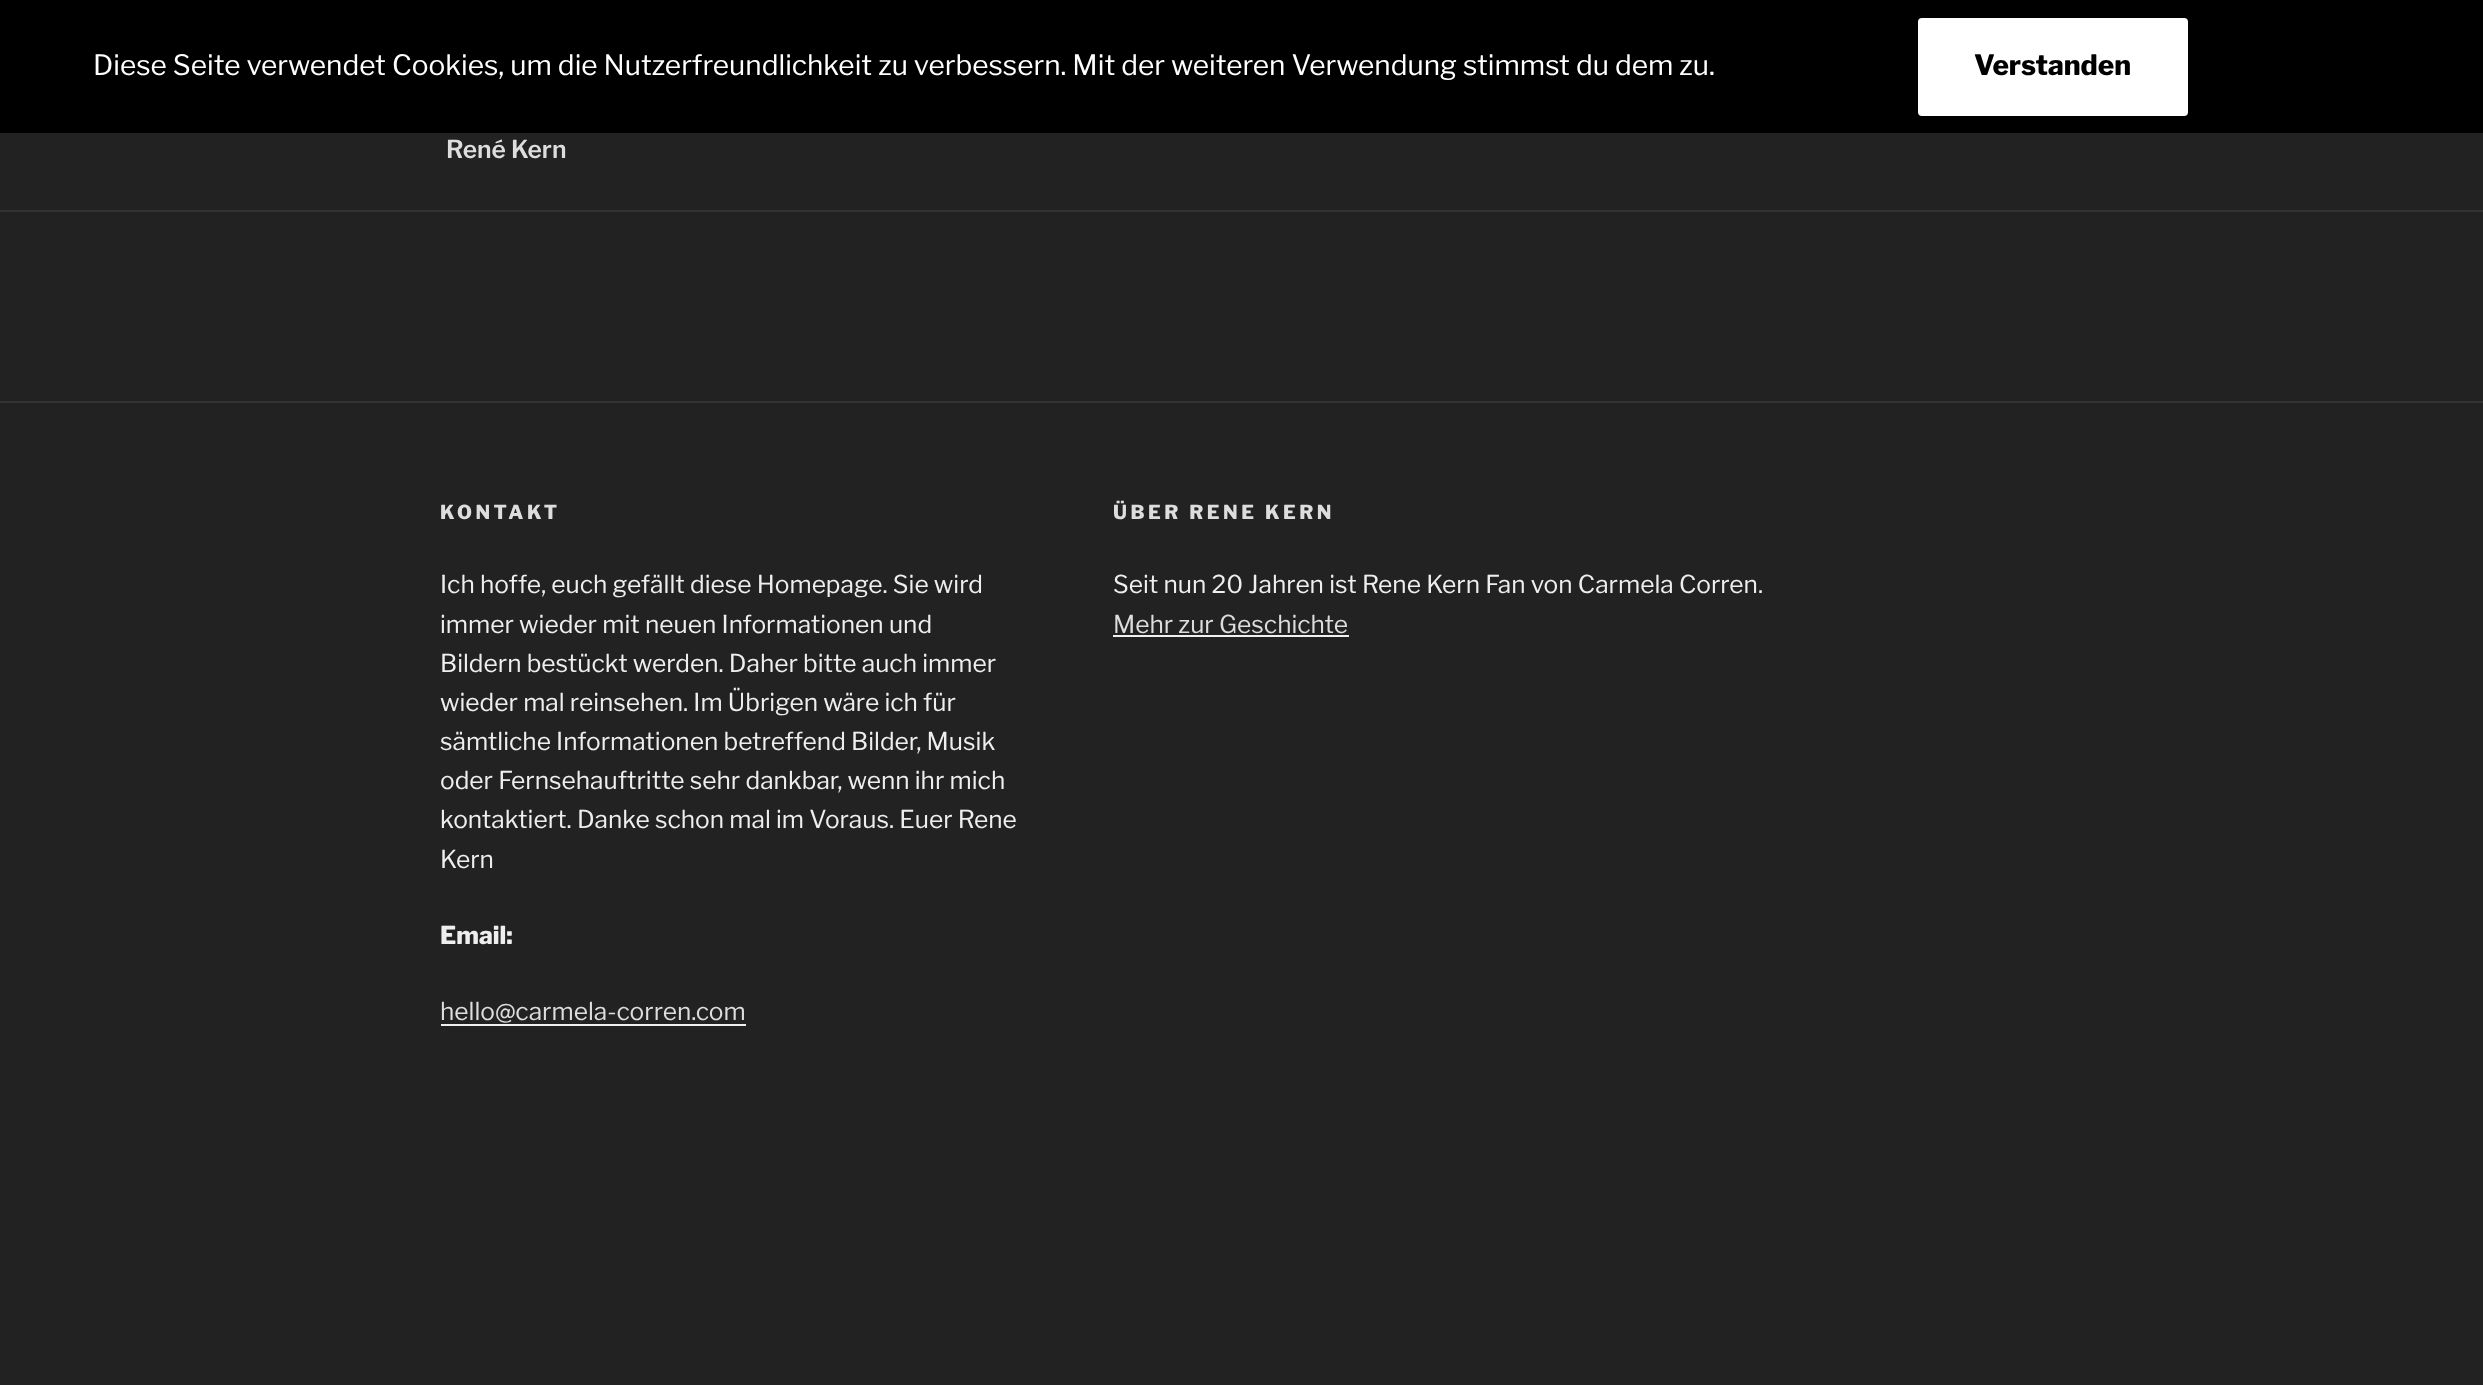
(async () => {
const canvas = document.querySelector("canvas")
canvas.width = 2483
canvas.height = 1385
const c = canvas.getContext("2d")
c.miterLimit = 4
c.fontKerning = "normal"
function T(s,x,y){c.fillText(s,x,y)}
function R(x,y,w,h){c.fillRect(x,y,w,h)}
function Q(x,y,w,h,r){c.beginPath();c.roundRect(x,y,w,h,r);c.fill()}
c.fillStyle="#222"
R(0,0,2483,1385)
c.fillStyle="#000"
R(0,0,2483,133)
c.font="100 28px 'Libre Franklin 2'"
c.fillStyle="#fff"
T("Diese Seite verwendet Cookies, um die Nutzerfreundlichkeit zu verbessern. Mit der weiteren Verwendung stimmst du dem zu.",93,75)
Q(1918,18,270,98,4)
c.font="100 28px Libre Franklin"
c.fillStyle="#000"
T("Verstanden",1974,75)
c.fillStyle="#333"
R(0,210,2483,2)
c.font="100 24.5px 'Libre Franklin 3'"
c.fillStyle="#ddd"
T("René Kern",446,158)
c.fillStyle="#333"
R(0,401,2483,2)
c.letterSpacing="3.5px"
c.font="100 19.25px Libre Franklin"
c.fillStyle="#ddd"
T("KONTAKT",440,519)
c.letterSpacing="0px"
c.font="100 24.5px 'Libre Franklin 2'"
c.fillStyle="#eee"
T("Ich hoffe, euch gefällt diese Homepage. Sie wird",440,593)
T("immer wieder mit neuen Informationen und",440,633)
T("Bildern bestückt werden. Daher bitte auch immer",440,672)
T("wieder mal reinsehen. Im Übrigen wäre ich für",440,711)
T("sämtliche Informationen betreffend Bilder, Musik",440,750)
T("oder Fernsehauftritte sehr dankbar, wenn ihr mich",440,789)
T("kontaktiert. Danke schon mal im Voraus. Euer Rene",440,828)
T("Kern",440,868)
c.font="100 24.5px Libre Franklin"
T("Email:",440,944)
c.font="100 24.5px 'Libre Franklin 2'"
c.fillStyle="#ddd"
T("hello@carmela-corren.com",440,1020)
c.fillStyle="#f0f0f0"
R(441,1024,305,2)
c.letterSpacing="3.5px"
c.font="100 19.25px Libre Franklin"
c.fillStyle="#ddd"
T("ÜBER RENE KERN",1113,519)
c.letterSpacing="0px"
c.font="100 24.5px 'Libre Franklin 2'"
c.fillStyle="#eee"
T("Seit nun 20 Jahren ist Rene Kern Fan von Carmela Corren.",1113,593)
c.fillStyle="#ddd"
T("Mehr zur Geschichte",1113,633)
c.fillStyle="#f0f0f0"
R(1113,635,236,2)
})()
